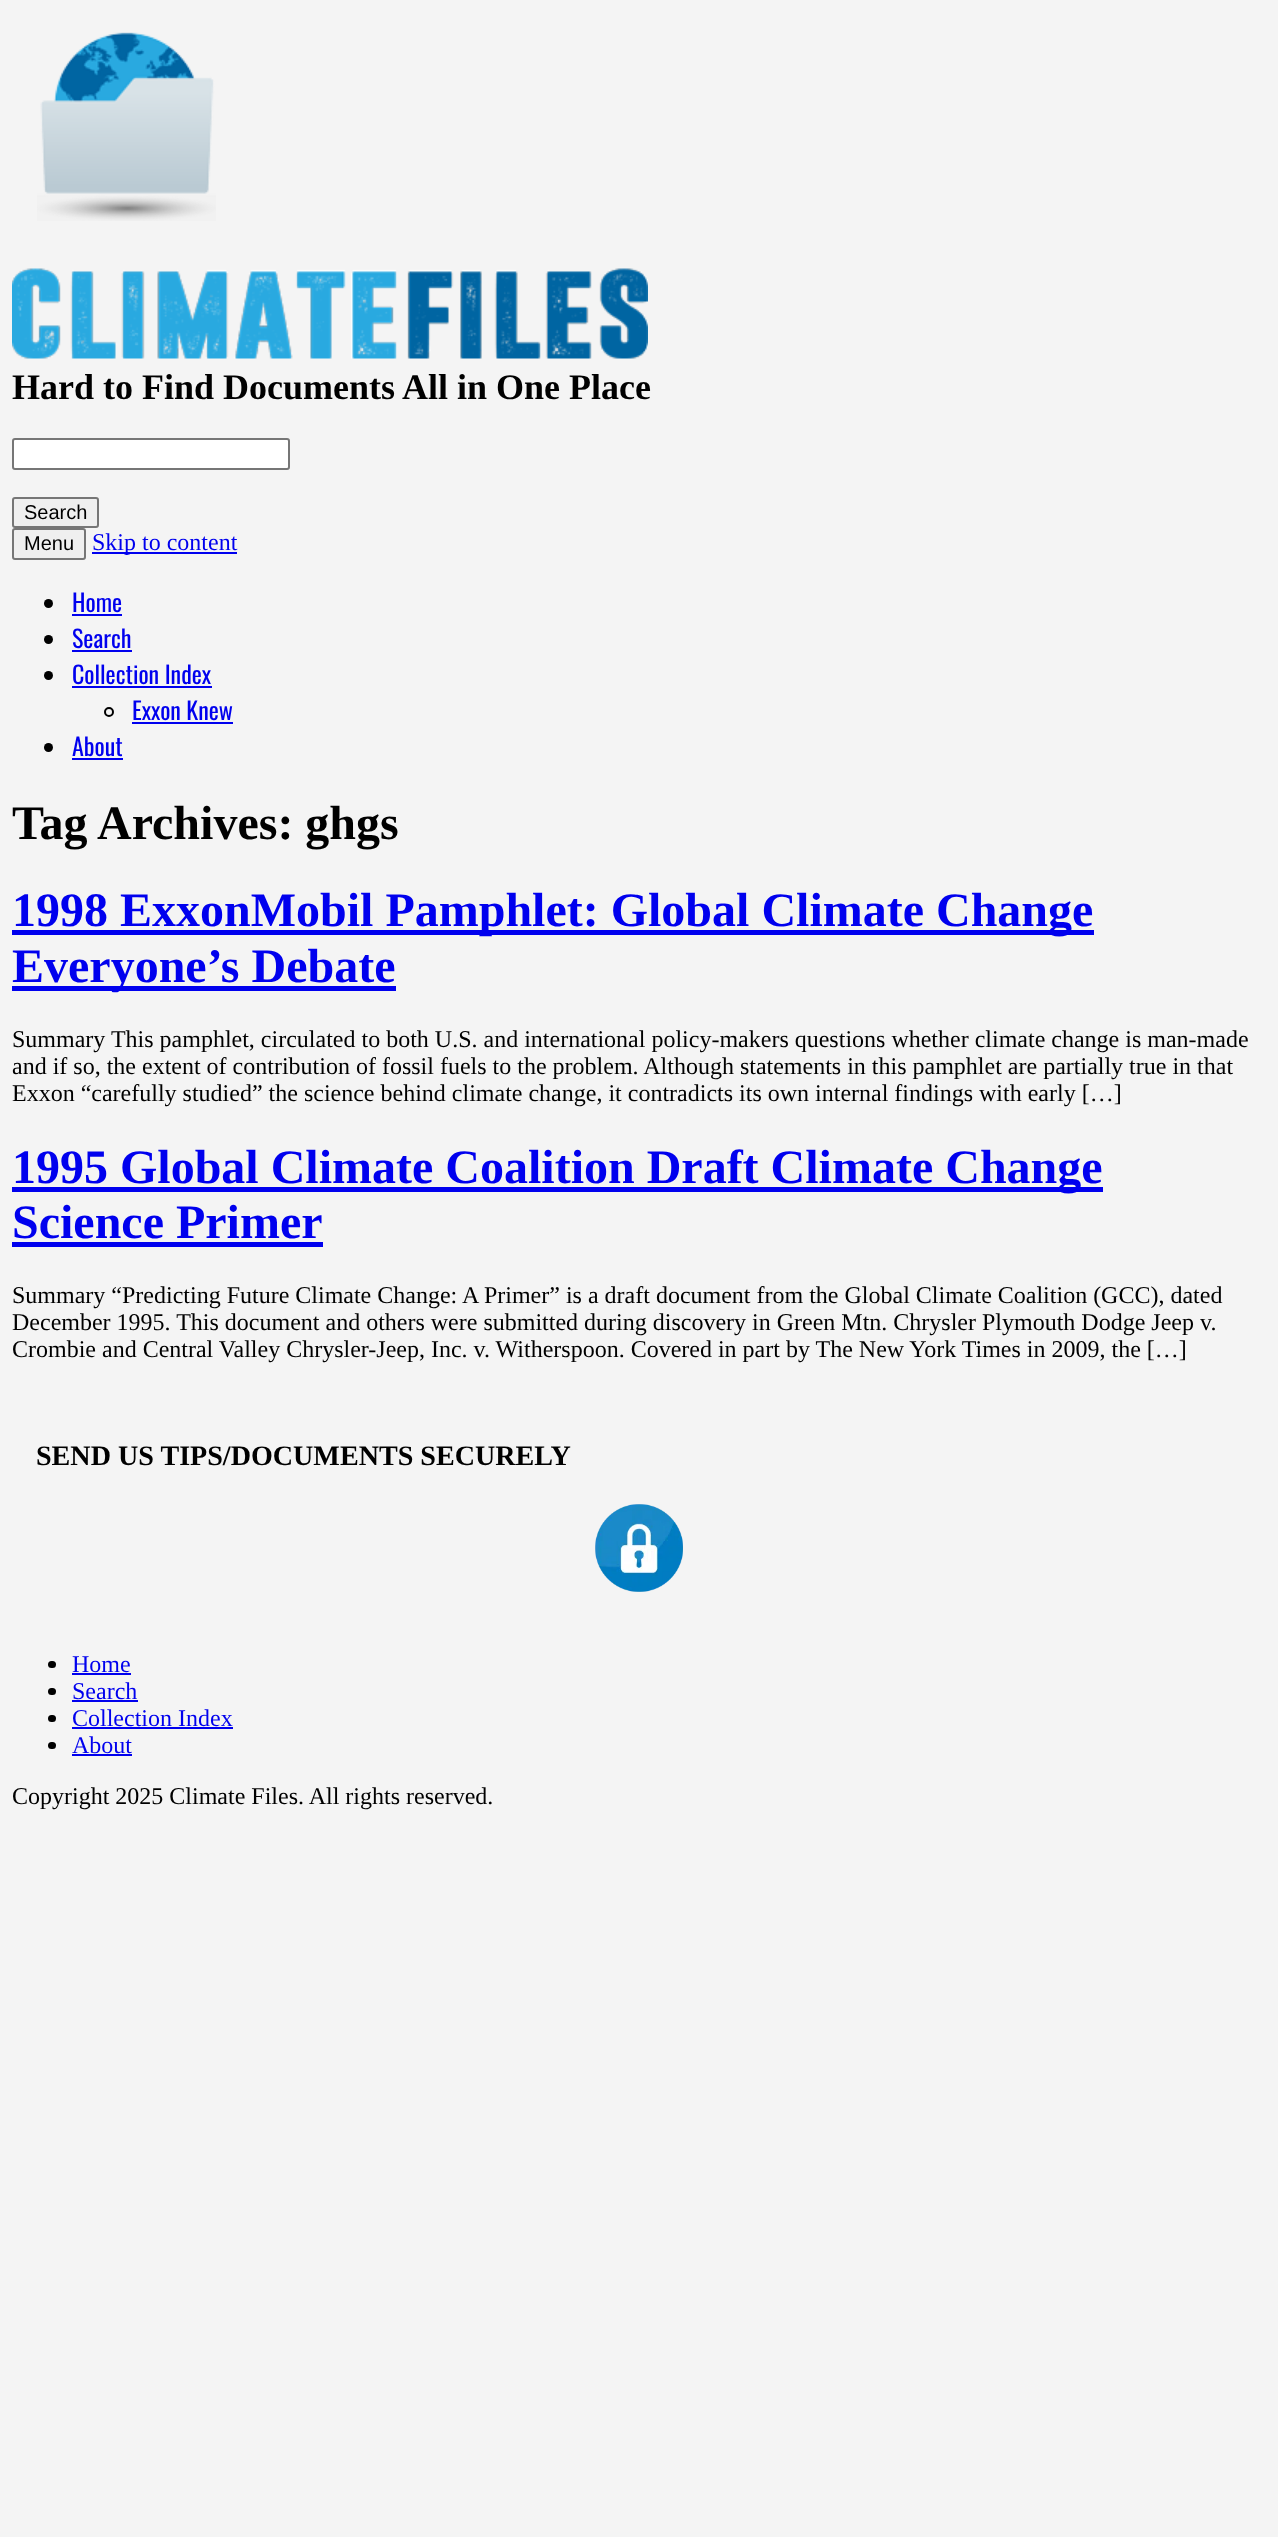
(async () => {
const canvas = document.querySelector("canvas")
canvas.width = 1278
canvas.height = 2537
const c = canvas.getContext("2d")
c.miterLimit = 4
c.fontKerning = "normal"
function T(s,x,y){c.fillText(s,x,y)}
function R(x,y,w,h){c.fillRect(x,y,w,h)}
function Q(x,y,w,h,r){c.beginPath();c.roundRect(x,y,w,h,r);c.fill()}
async function I(src,x,y,w,h){const img=new Image();img.src=src;await img.decode();c.drawImage(img,x,y,w,h)}
c.fillStyle="#f4f4f4"
R(0,0,1278,2537)
await I("1.png",37,32,179,189)
await I("2.png",12,268,636,91)
c.font="bold 36px Liberation Serif"
c.fillStyle="#000"
T("Hard to Find Documents All in One Place",12,399)
c.fillStyle="#fff"
c.beginPath()
c.roundRect(13,439,276,30,2)
c.fill()
c.strokeStyle="#767676"
c.lineWidth=2
c.stroke()
c.fillStyle="#efefef"
c.beginPath()
c.roundRect(13,498,85,29,2)
c.fill()
c.stroke()
c.font="20px Liberation Sans"
c.fillStyle="#000"
T("Search",24,519)
c.fillStyle="#efefef"
c.beginPath()
c.roundRect(13,529,72,30,2)
c.fill()
c.stroke()
c.fillStyle="#000"
T("Menu",24,550)
c.fillStyle="#00e"
R(92,552,145,2)
c.font="24px Liberation Serif"
T("Skip to content",92,550)
c.fillStyle="#000"
c.beginPath()
c.arc(48.5,603.5,4.5,0,7)
c.fill()
c.font="24px Oswald"
c.fillStyle="#00e"
T("Home",72,612)
R(72,614,50,2)
c.fillStyle="#000"
c.beginPath()
c.arc(48.5,639.5,4.5,0,7)
c.fill()
c.fillStyle="#00e"
T("Search",72,648)
R(72,650,60,2)
c.fillStyle="#000"
c.beginPath()
c.arc(48.5,675.5,4.5,0,7)
c.fill()
c.fillStyle="#00e"
T("Collection Index",72,684)
R(72,686,140,2)
c.beginPath()
c.arc(109,712,4,0,7)
c.strokeStyle="#000"
c.stroke()
T("Exxon Knew",132,720)
R(132,722,101,2)
c.fillStyle="#000"
c.beginPath()
c.arc(48.5,747.5,4.5,0,7)
c.fill()
c.fillStyle="#00e"
T("About",72,756)
R(72,758,51,2)
c.font="bold 48px Liberation Serif"
c.fillStyle="#000"
T("Tag Archives: ghgs",12,839)
c.fillStyle="#00e"
R(12,930,1082,5)
T("1998 ExxonMobil Pamphlet: Global Climate Change",12,926)
R(12,986,384,5)
T("Everyone’s Debate",12,982)
c.font="24px Liberation Serif"
c.fillStyle="#000"
T("Summary This pamphlet, circulated to both U.S. and international policy-makers questions whether climate change is man-made",12,1047)
T("and if so, the extent of contribution of fossil fuels to the problem. Although statements in this pamphlet are partially true in that",12,1074)
T("Exxon “carefully studied” the science behind climate change, it contradicts its own internal findings with early […]",12,1101)
c.fillStyle="#00e"
R(12,1187,1091,5)
c.font="bold 48px Liberation Serif"
T("1995 Global Climate Coalition Draft Climate Change",12,1183)
T("Science Primer",12,1238)
R(12,1242,311,5)
c.font="24px Liberation Serif"
c.fillStyle="#000"
T("Summary “Predicting Future Climate Change: A Primer” is a draft document from the Global Climate Coalition (GCC), dated",12,1303)
T("December 1995. This document and others were submitted during discovery in Green Mtn. Chrysler Plymouth Dodge Jeep v.",12,1330)
T("Crombie and Central Valley Chrysler-Jeep, Inc. v. Witherspoon. Covered in part by The New York Times in 2009, the […]",12,1357)
c.font="bold 28.1px Liberation Serif"
T("SEND US TIPS/DOCUMENTS SECURELY",36,1465)
await I("3.png",595,1504,88,88)
Q(48,1661,8,7,3.5)
c.font="24px Liberation Serif"
c.fillStyle="#00e"
T("Home",72,1672)
R(72,1673,59,2)
c.fillStyle="#000"
Q(48,1688,8,7,3.5)
c.fillStyle="#00e"
T("Search",72,1699)
R(72,1700,66,2)
c.fillStyle="#000"
Q(48,1715,8,7,3.5)
c.fillStyle="#00e"
T("Collection Index",72,1726)
R(72,1727,161,2)
c.fillStyle="#000"
Q(48,1742,8,7,3.5)
c.fillStyle="#00e"
T("About",72,1753)
R(72,1754,60,2)
c.fillStyle="#000"
T("Copyright 2025 Climate Files. All rights reserved.",12,1804)
})()
